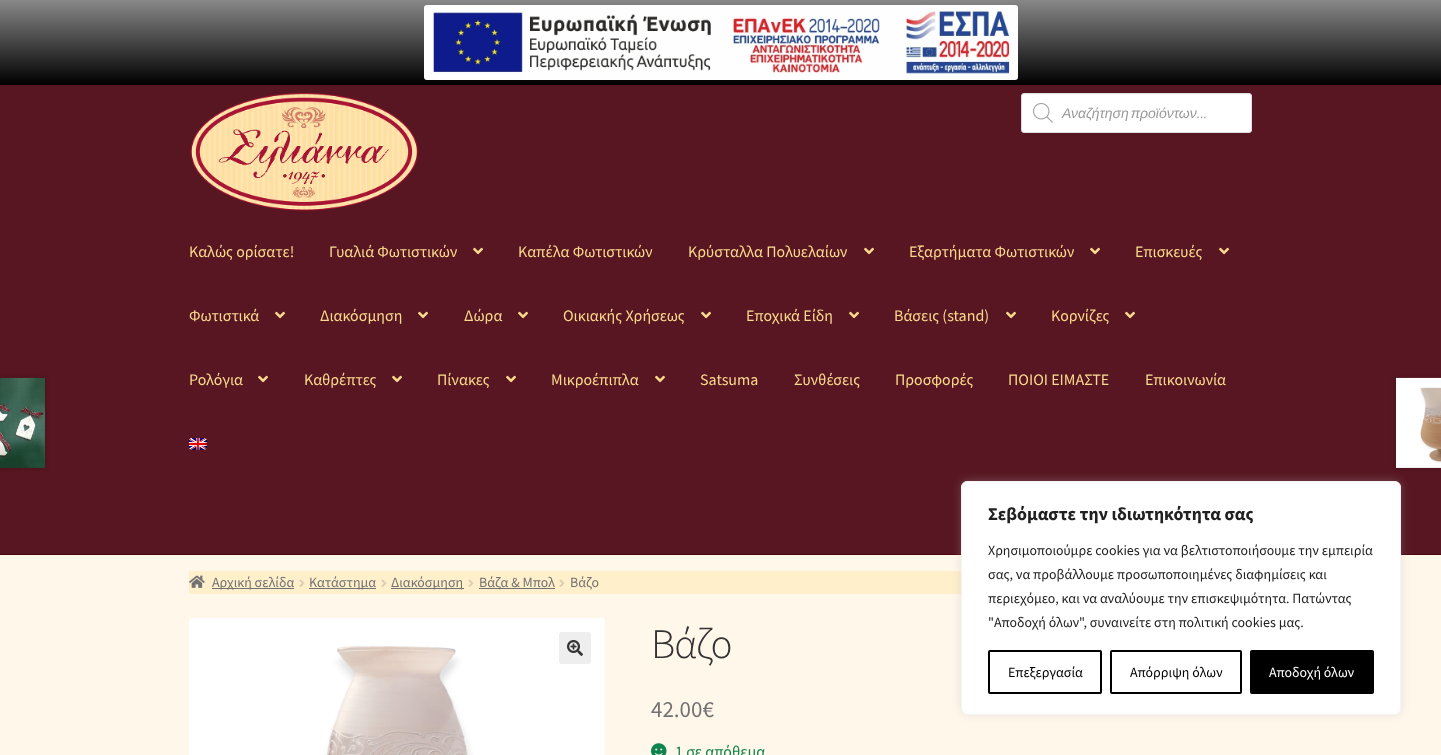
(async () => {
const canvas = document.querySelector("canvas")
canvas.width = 1441
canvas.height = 755
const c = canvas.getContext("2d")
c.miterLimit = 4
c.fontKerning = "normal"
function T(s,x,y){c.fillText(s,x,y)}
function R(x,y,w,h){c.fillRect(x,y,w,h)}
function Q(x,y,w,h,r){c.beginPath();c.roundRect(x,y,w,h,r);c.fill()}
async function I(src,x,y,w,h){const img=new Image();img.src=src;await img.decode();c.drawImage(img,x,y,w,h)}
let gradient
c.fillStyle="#fff7ea"
R(0,0,1441,755)
gradient = c.createLinearGradient(721,0,721,85)
gradient.addColorStop(0,"#888")
gradient.addColorStop(1,"#000")
c.fillStyle = gradient
R(0,0,1441,85)
await I("1.png",424,5,594,75)
c.fillStyle="#581622"
R(0,85,1441,469)
c.fillStyle="#490713"
R(0,554,1441,1)
await I("2.png",190,93,229,119)
c.fillStyle="#fff"
c.beginPath()
c.roundRect(1021.5,93.5,230,39,2.5)
c.fill()
c.strokeStyle="#ddd"
c.stroke()
await I("3.png",1033,103,20,20)
c.wordSpacing="-2px"
c.font="italic 14px Liberation Sans"
c.fillStyle="#999"
T("Αναζήτηση προϊόντων",1062,118)
c.wordSpacing="0px"
c.font="italic 14px Source Sans Pro"
T("...",1197,118)
c.font="16px Source Sans Pro"
c.fillStyle="#fbda8d"
T("Καλώς ορίσατε!",189,257)
T("Γυαλιά Φωτιστικών",329,257)
await I("4.png",473,247,10,8)
T("Καπέλα Φωτιστικών",518,257)
T("Κρύσταλλα Πολυελαίων",688,257)
await I("4.png",864,247,10,8)
T("Εξαρτήματα Φωτιστικών",909,257)
await I("4.png",1090,247,10,8)
T("Επισκευές",1135,257)
await I("4.png",1219,247,10,8)
T("Φωτιστικά",189,321)
await I("4.png",275,311,10,8)
T("Διακόσμηση",320,321)
await I("4.png",418,311,10,8)
T("Δώρα",464,321)
await I("4.png",518,311,10,8)
T("Οικιακής Χρήσεως",563,321)
await I("4.png",701,311,10,8)
T("Εποχικά Είδη",746,321)
await I("4.png",849,311,10,8)
T("Βάσεις (stand)",894,321)
await I("4.png",1006,311,10,8)
T("Κορνίζες",1051,321)
await I("4.png",1125,311,10,8)
T("Ρολόγια",189,385)
await I("4.png",258,375,10,8)
T("Καθρέπτες",304,385)
await I("4.png",392,375,10,8)
T("Πίνακες",437,385)
await I("4.png",506,375,10,8)
T("Μικροέπιπλα",551,385)
await I("4.png",655,375,10,8)
T("Satsuma",700,385)
T("Συνθέσεις",794,385)
T("Προσφορές",895,385)
T("ΠΟΙΟΙ ΕΙΜΑΣΤΕ",1008,385)
T("Επικοινωνία",1145,385)
await I("5.png",189,438,18,12)
c.fillStyle="#ffefcb"
R(189,571,772,23)
await I("6.png",189,575,16,13)
c.fillStyle="#727272"
R(212,588,82,1)
c.font="14px Source Sans Pro"
T("Αρχική σελίδα",212,587)
await I("7.png",299,579,6,8)
R(309,588,67,1)
T("Κατάστημα",309,587)
await I("7.png",381,579,6,8)
R(391,588,73,1)
T("Διακόσμηση",391,587)
await I("7.png",468,579,6,8)
R(479,588,76,1)
T("Βάζα & Μπολ",479,587)
await I("7.png",559,579,6,8)
T("Βάζο",570,587)
c.fillStyle="#00000033"
c.filter="blur(2.5px)"
c.beginPath()
c.rect(-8,378,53,90)
c.fill()
c.filter="none"
await I("8.png",0,377,45,91)
c.filter="blur(2.5px)"
c.beginPath()
c.rect(1396,378,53,90)
c.fill()
c.filter="none"
await I("9.png",1396,377,45,91)
await I("10.png",189,618,416,137)
c.fillStyle="#eee"
Q(559,632,32,32,3)
await I("11.png",567,640,16,16)
c.letterSpacing="-1px"
c.font="300 42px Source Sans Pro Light"
c.fillStyle="#333"
T("Βάζο",651,658)
c.letterSpacing="0px"
c.font="23px Source Sans Pro"
c.fillStyle="#727272"
T("42.00€",651,717)
await I("12.png",651,743,16,12)
c.font="16px Source Sans Pro"
c.fillStyle="#0f834d"
T("1 σε απόθεμα",675,757)
c.fillStyle="#acabab4d"
c.filter="blur(5px)"
c.beginPath()
c.roundRect(961,480,440,234,6)
c.fill()
c.filter="none"
c.fillStyle="#fff"
c.beginPath()
c.roundRect(961.5,481.5,439,233,5.5)
c.fill()
c.strokeStyle="#f4f4f4"
c.stroke()
c.font="bold 18px Source Sans Pro"
c.fillStyle="#212121"
T("Σεβόμαστε την ιδιωτηκότητα σας",988,520)
c.font="14px Source Sans Pro"
T("Χρησιμοποιούμρε cookies για να βελτιστοποιήσουμε την εμπειρία",988,555)
T("σας, να προβάλλουμε προσωποποιημένες διαφημίσεις και",988,579)
T("περιεχόμεο, και να αναλύουμε την επισκεψιμότητα. Πατώντας",988,603)
T("\"Αποδοχή όλων\", συναινείτε στη πολιτική cookies μας.",988,627)
c.beginPath()
c.roundRect(989,651,112,42,1)
c.strokeStyle="#000"
c.lineWidth=2
c.stroke()
c.fillStyle="#000"
T("Επεξεργασία",1008,677)
c.beginPath()
c.roundRect(1111,651,130,42,1)
c.stroke()
T("Απόρριψη όλων",1130,677)
c.beginPath()
c.roundRect(1251,651,122,42,1)
c.fill()
c.stroke()
c.fillStyle="#fff"
T("Αποδοχή όλων",1269,677)
})()
